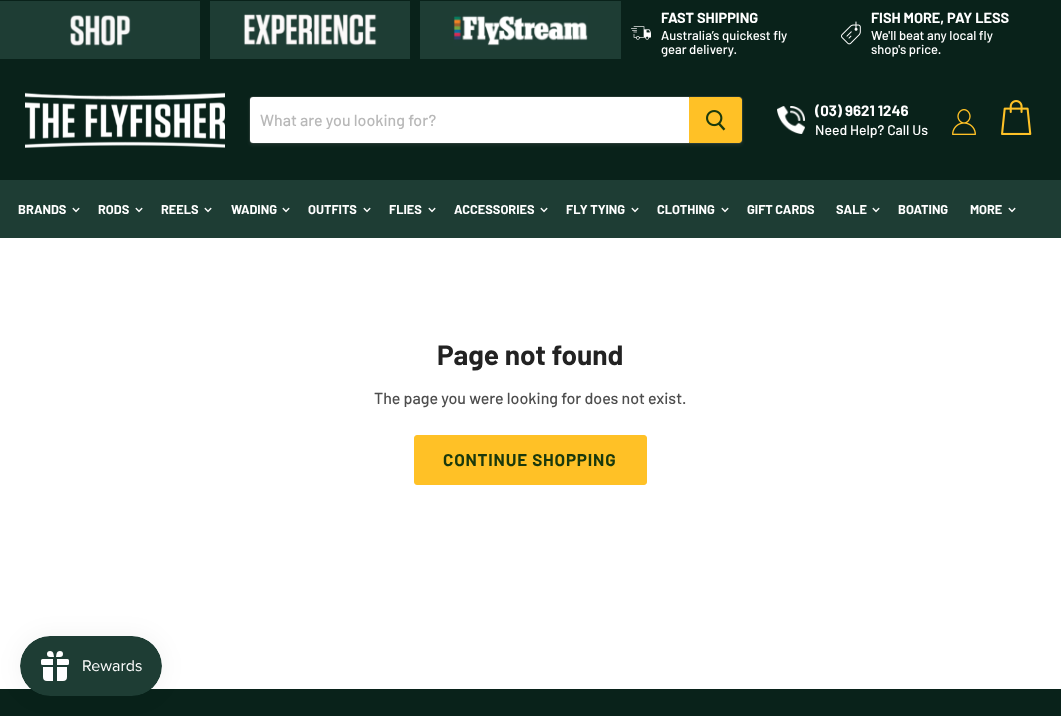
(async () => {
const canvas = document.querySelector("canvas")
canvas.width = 1061
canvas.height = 716
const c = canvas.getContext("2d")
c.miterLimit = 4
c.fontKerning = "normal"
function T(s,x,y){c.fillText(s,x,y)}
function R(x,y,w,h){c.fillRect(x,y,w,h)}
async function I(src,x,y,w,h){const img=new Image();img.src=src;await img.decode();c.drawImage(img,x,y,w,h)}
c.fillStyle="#fff"
R(0,0,1061,716)
c.fillStyle="#09221a"
R(0,0,1061,180)
c.fillStyle="#1e3d34"
R(0,1,200,58)
await I("1.png",70,15,61,31)
R(210,1,200,58)
await I("2.png",243,14,134,32)
R(420,1,201,58)
await I("3.png",453,15,135,31)
await I("4.png",631,26,20,14)
c.font="bold 14.5px Barlow"
c.fillStyle="#fff"
T("FAST SHIPPING",661,23)
c.font="500 13px Barlow"
T("Australia’s quickest fly",661,40)
T("gear delivery.",661,54)
await I("5.png",841,21,20,24)
c.font="bold 14.5px Barlow"
T("FISH MORE, PAY LESS",871,23)
c.font="500 13px Barlow"
T("We'll beat any local fly",871,40)
T("shop's price.",871,54)
await I("6.png",25,92,200,56)
c.fillStyle="#7f7f7f1c"
c.filter="blur(1.5px)"
c.beginPath()
c.roundRect(249,98,494,48,4)
c.fill()
c.filter="none"
c.beginPath()
c.roundRect(249.5,96.5,493,47,3.5)
c.strokeStyle="#7f7f7f33"
c.stroke()
c.fillStyle="#fff"
c.beginPath()
c.roundRect(250,97,439,46,[3,0,0,3])
c.fill()
c.save()
c.beginPath()
c.rect(260,110,419,19)
c.clip()
c.font="500 16px Barlow"
c.fillStyle="#b8b8b8"
T("What are you looking for?",260,126)
c.restore()
c.fillStyle="#ffc126"
c.beginPath()
c.roundRect(689.5,97.5,52,45,[0,2.5,2.5,0])
c.fill()
c.strokeStyle="#ffc126"
c.stroke()
await I("7.png",706,110,20,21)
await I("8.png",777,106,28,28)
c.font="bold 15px Barlow"
c.fillStyle="#fff"
T("(03) 9621 1246",815,116)
c.font="500 14px Barlow"
T("Need Help? Call Us",815,135)
await I("9.png",952,109,24,26)
await I("10.png",1001,100,31,35)
c.fillStyle="#1e3d34"
R(0,180,1061,58)
c.font="bold 12.75px Barlow"
c.fillStyle="#fff"
T("BRANDS",18,214)
await I("11.png",72,207,8,6)
T("RODS",98,214)
await I("11.png",135,207,8,6)
T("REELS",161,214)
await I("11.png",204,207,8,6)
T("WADING",231,214)
await I("11.png",282,207,8,6)
T("OUTFITS",308,214)
await I("11.png",363,207,8,6)
T("FLIES",389,214)
await I("11.png",428,207,8,6)
T("ACCESSORIES",454,214)
await I("11.png",540,207,8,6)
T("FLY TYING",566,214)
await I("11.png",631,207,8,6)
T("CLOTHING",657,214)
await I("11.png",721,207,8,6)
T("GIFT CARDS",747,214)
T("SALE",836,214)
await I("11.png",872,207,8,6)
T("BOATING",898,214)
T("MORE",970,214)
await I("11.png",1008,207,8,6)
c.font="bold 28px Barlow"
c.fillStyle="#222"
T("Page not found",437,365)
c.font="500 16px Barlow"
c.fillStyle="#4d4d4d"
T("The page you were looking for does not exist.",374,404)
c.fillStyle="#ffc126"
c.beginPath()
c.roundRect(414.5,435.5,232,49,2.5)
c.fill()
c.stroke()
c.letterSpacing="0.8px"
c.font="bold 17px Barlow"
c.fillStyle="#1a390c"
T("CONTINUE SHOPPING",443,466)
c.fillStyle="#09221a"
R(0,689,1061,27)
c.fillStyle="#0000000d"
c.filter="blur(12.5px)"
c.beginPath()
c.roundRect(20,636,142,60,30)
c.fill()
c.filter="none"
await I("12.png",20,636,142,60)
})()
